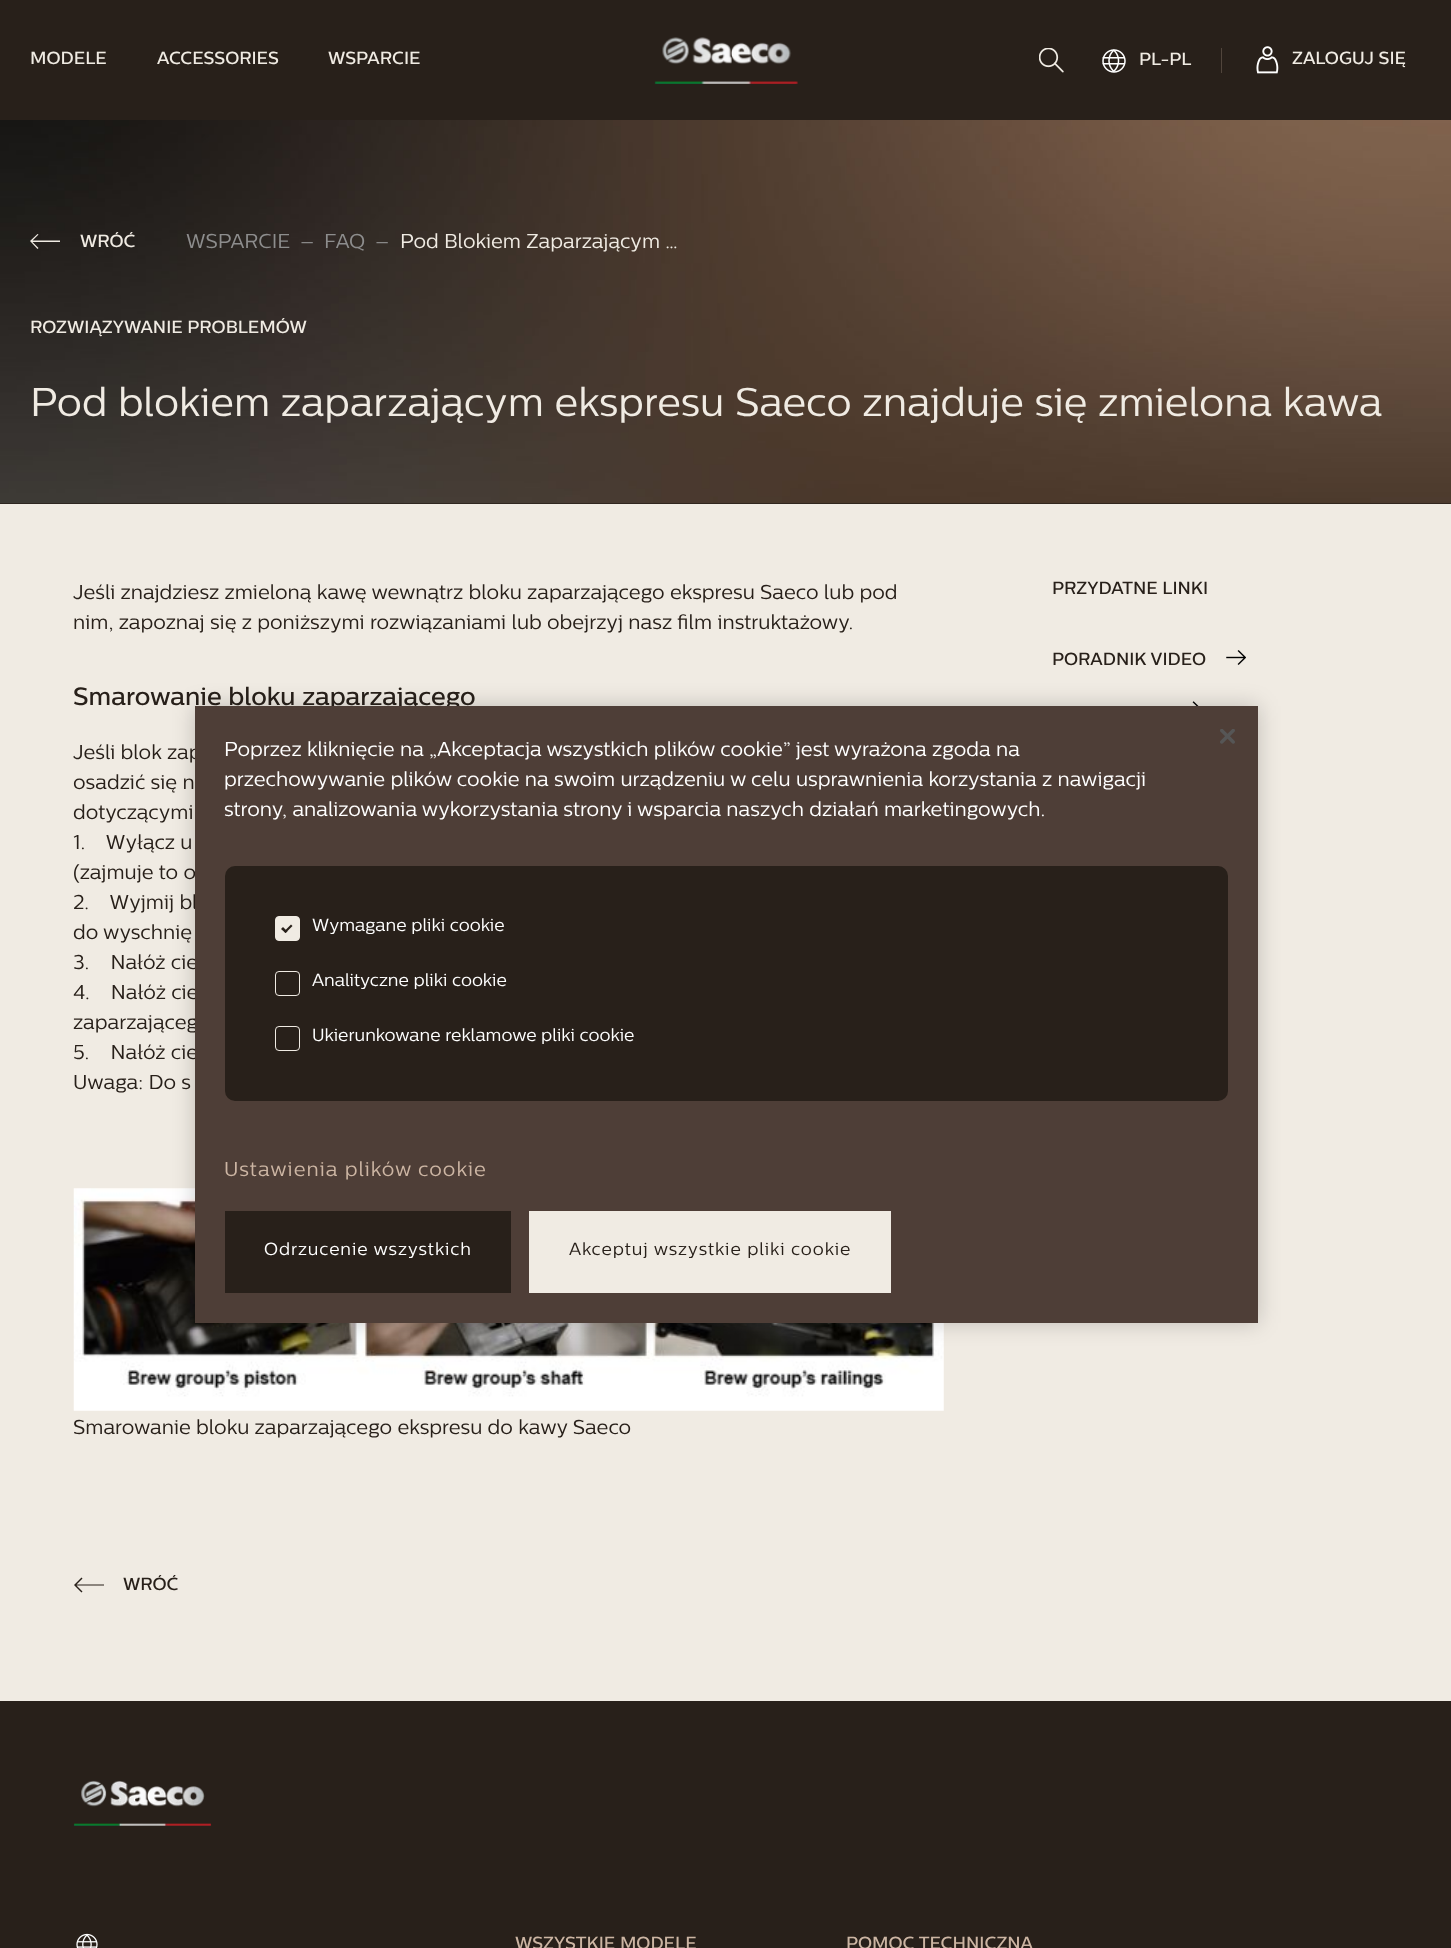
(async () => {
const canvas = document.querySelector("canvas")
canvas.width = 1451
canvas.height = 1948
const c = canvas.getContext("2d")
c.miterLimit = 4
c.fontKerning = "normal"
function T(s,x,y){c.fillText(s,x,y)}
function R(x,y,w,h){c.fillRect(x,y,w,h)}
function Q(x,y,w,h,r){c.beginPath();c.roundRect(x,y,w,h,r);c.fill()}
async function I(src,x,y,w,h){const img=new Image();img.src=src;await img.decode();c.drawImage(img,x,y,w,h)}
let path
c.fillStyle="#28201a"
R(0,0,1451,1948)
c.font="500 17.5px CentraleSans"
c.fillStyle="#f0ebe3"
T("MODELE",30,64)
T("ACCESSORIES",157,64)
T("WSPARCIE",328,64)
await I("1.png",654,37,144,47)
await I("2.png",1039,48,25,25)
await I("3.png",1102,49,24,24)
T("PL-PL",1139,65)
c.fillStyle="#51453c"
R(1221,48,1,25)
await I("4.png",1256,46,23,28)
c.fillStyle="#f0ebe3"
T("ZALOGUJ SIĘ",1292,64)
await I("5.png",0,120,1451,384)
path = new Path2D("M37.5 234l-7.5 7l7.5 8l1-1l-6-6h27.5v-1.5h-27.5l6-6z")
c.fill(path,"evenodd")
T("WRÓĆ",80,247)
c.font="20px CentraleSans"
c.fillStyle="#8d8d8d"
T("WSPARCIE",186,248)
T("–",300,248)
T("FAQ",324,248)
T("–",375,248)
c.fillStyle="#f0ebe3"
T("Pod Blokiem Zaparzającym …",400,248)
c.font="500 17.5px CentraleSans"
T("ROZWIĄZYWANIE PROBLEMÓW",30,333)
c.font="40px CentraleSans"
T("Pod blokiem zaparzającym ekspresu Saeco znajduje się zmielona kawa",30,416)
R(0,504,1451,1197)
c.font="20px CentraleSans"
c.fillStyle="#28201a"
T("Jeśli znajdziesz zmieloną kawę wewnątrz bloku zaparzającego ekspresu Saeco lub pod",73,599)
T("nim, zapoznaj się z poniższymi rozwiązaniami lub obejrzyj nasz film instruktażowy.",73,629)
c.font="500 25px CentraleSans"
T("Smarowanie bloku zaparzającego",73,705)
c.font="20px CentraleSans"
T("Jeśli blok zap",73,759)
T("osadzić się n",73,789)
T("dotyczącymi",73,819)
T("1.    Wyłącz u",73,849)
T("(zajmuje to o",73,879)
T("2.    Wyjmij bl",73,909)
T("do wyschnię",73,939)
T("3.    Nałóż cie",73,969)
T("4.    Nałóż cie",73,999)
T("zaparzająceg",73,1029)
T("5.    Nałóż cie",73,1059)
T("Uwaga: Do s",73,1089)
await I("6.png",73,1188,871,223)
T("Smarowanie bloku zaparzającego ekspresu do kawy Saeco",73,1434)
c.font="500 17.5px CentraleSans"
T("PRZYDATNE LINKI",1052,594)
T("PORADNIK VIDEO",1052,665)
await I("7.png",1226,650,20,15)
await I("8.png",1192,701,7,5)
path = new Path2D("M81.5 1577.5l-7.5 7.5l7.5 7.5l1-1l-6-6h27.5v-1h-27.5l6-6z")
c.fill(path,"evenodd")
T("WRÓĆ",123,1590)
await I("9.png",73,1780,139,46)
await I("10.png",76,1933,22,15)
c.fillStyle="#ccb5a3"
T("WSZYSTKIE MODELE",515,1949)
T("POMOC TECHNICZNA",846,1949)
c.fillStyle="#00000033"
c.filter="blur(11px)"
c.beginPath()
c.rect(195,706,1063,617)
c.fill()
c.filter="none"
c.fillStyle="#4e3e37"
R(195,706,1063,617)
await I("11.png",1220,729,15,15)
c.font="20px CentraleSans"
c.fillStyle="#fff"
T("Poprzez kliknięcie na „Akceptacja wszystkich plików cookie” jest wyrażona zgoda na",224,756)
T("przechowywanie plików cookie na swoim urządzeniu w celu usprawnienia korzystania z nawigacji",224,786)
T("strony, analizowania wykorzystania strony i wsparcia naszych działań marketingowych.",224,816)
c.fillStyle="#28201a"
Q(225,866,1003,235,10)
c.fillStyle="#f0ebe3"
c.beginPath()
c.roundRect(275.5,916.5,24,24,3.5)
c.fill()
c.strokeStyle="#f0ebe3"
c.stroke()
c.fillStyle="#28201a"
path = new Path2D("M284 931.5l7-7l1.5 1.5l-7 7z")
c.fill(path)
path = new Path2D("M281 929l2-2l4.5 4.5l-2 1.5z")
c.fill(path)
c.font="17.5px CentraleSans"
c.fillStyle="#fff"
T("Wymagane pliki cookie",312,931)
c.beginPath()
c.roundRect(275.5,971.5,24,24,3.5)
c.stroke()
T("Analityczne pliki cookie",312,986)
c.beginPath()
c.roundRect(275.5,1026.5,24,24,3.5)
c.stroke()
T("Ukierunkowane reklamowe pliki cookie",312,1041)
c.letterSpacing="1px"
c.font="20px CentraleSans"
c.fillStyle="#ccb5a3"
T("Ustawienia plików cookie",224,1176)
c.fillStyle="#28201a"
R(225,1211,286,82)
c.letterSpacing="0.9px"
c.font="17.5px CentraleSans"
c.fillStyle="#fff"
T("Odrzucenie wszystkich",264,1255)
c.fillStyle="#f0ebe3"
R(529,1211,362,82)
c.fillStyle="#28201a"
T("Akceptuj wszystkie pliki cookie",569,1255)
})()
